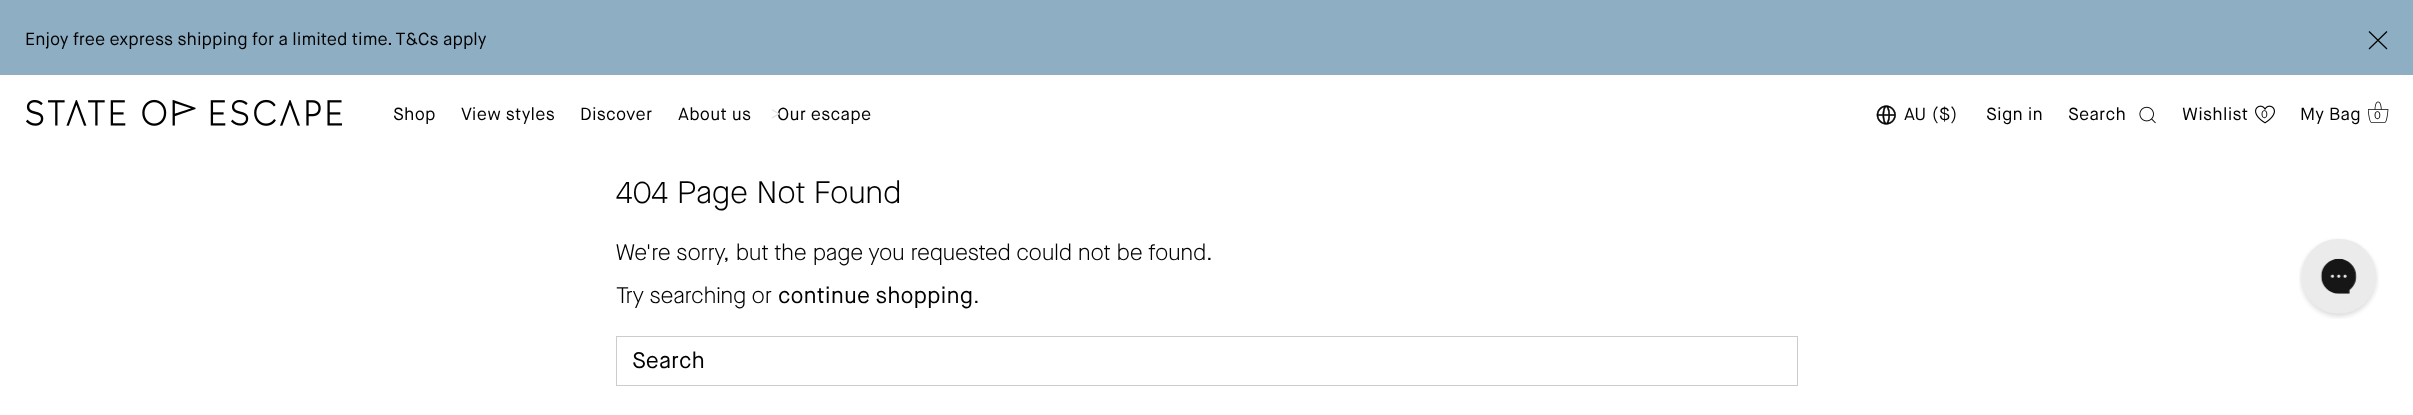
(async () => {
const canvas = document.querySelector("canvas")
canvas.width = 2413
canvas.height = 415
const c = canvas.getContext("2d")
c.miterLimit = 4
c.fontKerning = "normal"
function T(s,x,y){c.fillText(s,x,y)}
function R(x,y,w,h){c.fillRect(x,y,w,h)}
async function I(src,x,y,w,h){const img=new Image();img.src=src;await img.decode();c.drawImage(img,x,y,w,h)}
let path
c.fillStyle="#fff"
R(0,0,2413,415)
c.fillStyle="#8eaec3"
R(0,0,2413,75)
c.font="17.5px Maison Neue"
c.fillStyle="#000"
T("Enjoy free express shipping for a limited time. T&Cs apply",25,45)
path = new Path2D("M2369 31.5l18 17.5m0-17.5l-18 17.5")
c.strokeStyle="#000"
c.lineWidth=1.2
c.stroke(path)
await I("1.png",26,99,316,27)
c.letterSpacing="0.25px"
T("Shop",393,120)
T("View styles",461,120)
T("Discover",580,120)
T("About us",678,120)
T("Our escape",777,120)
c.fillStyle="#e2e2e2"
T(">",771,120)
await I("2.png",1876,105,20,20)
c.letterSpacing="0px"
c.fillStyle="#000"
T("AU",1904,120)
T("($)",1932,120)
c.letterSpacing="0.25px"
T("Sign in",1986,120)
T("Search",2068,120)
await I("3.png",2139,106,17,18)
T("Wishlist",2182,120)
await I("4.png",2255,105,20,19)
c.font="11px Maison Neue"
T("0",2261,118)
c.font="17.5px Maison Neue"
T("My Bag",2300,120)
await I("5.png",2368,101,21,22)
c.font="11px Maison Neue"
T("0",2374,119)
c.letterSpacing="0px"
c.font="300 31.25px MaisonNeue"
T("404 Page Not Found",616,203)
c.font="300 22.5px MaisonNeue"
T("We're sorry, but the page you requested could not be found.",616,260)
T("Try searching or",616,303)
c.font="22.5px Maison Neue"
T("continue shopping",778,303)
c.font="300 22.5px MaisonNeue"
T(".",973,303)
c.strokeStyle="#ccc"
c.lineWidth=1
c.strokeRect(616.5,336.5,1181,49)
c.font="22.5px Maison Neue"
T("Search",632,368)
await I("6.png",2299,238,80,81)
})()
